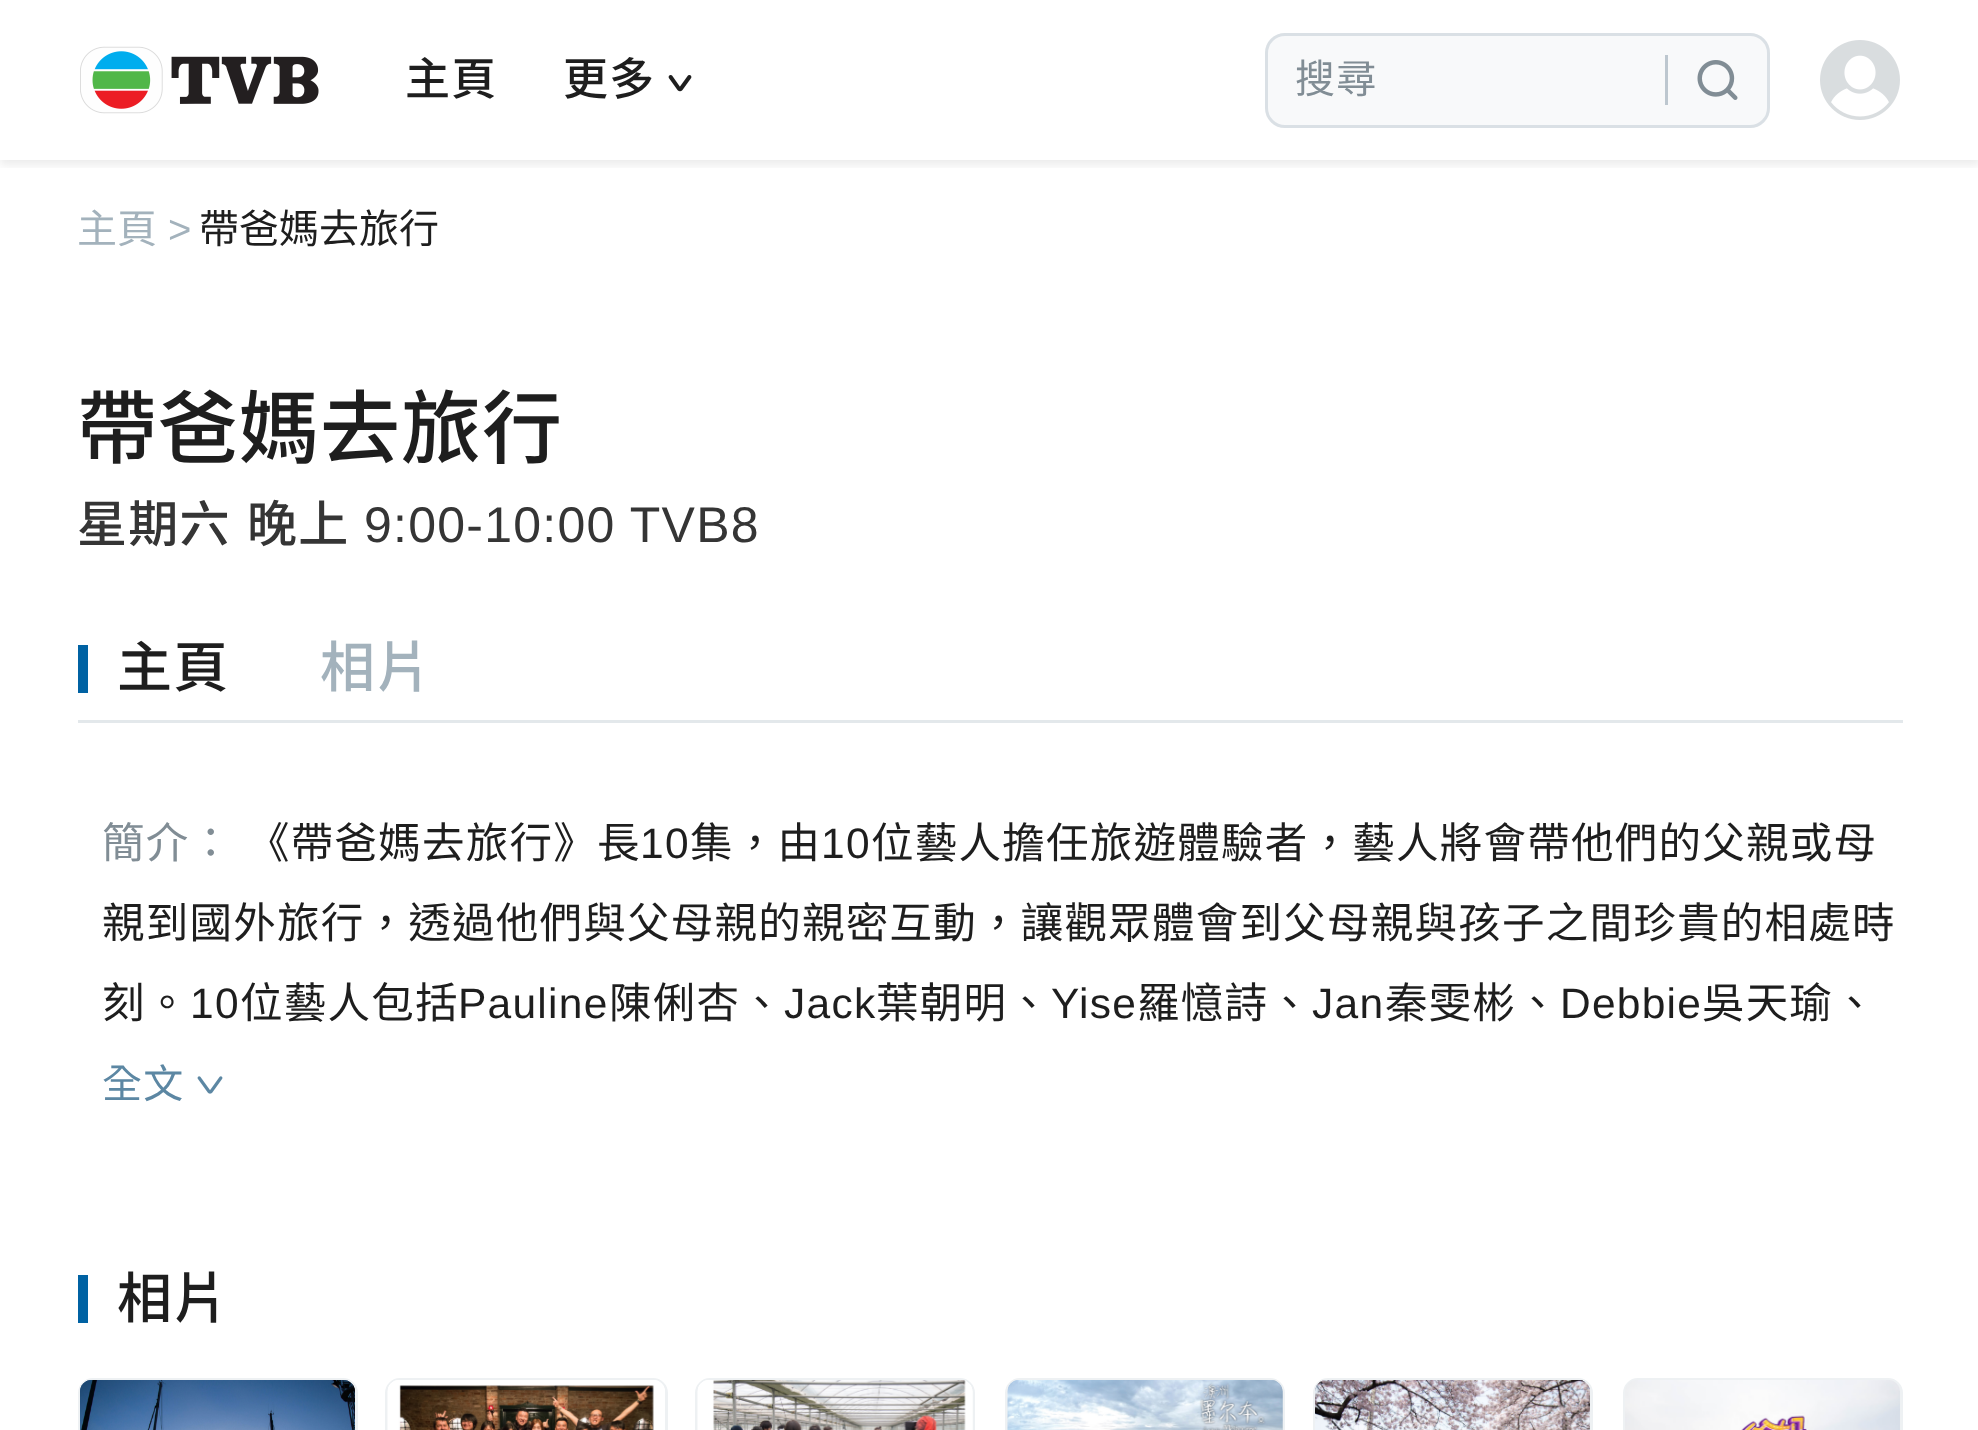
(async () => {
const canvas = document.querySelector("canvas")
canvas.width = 1978
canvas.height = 1430
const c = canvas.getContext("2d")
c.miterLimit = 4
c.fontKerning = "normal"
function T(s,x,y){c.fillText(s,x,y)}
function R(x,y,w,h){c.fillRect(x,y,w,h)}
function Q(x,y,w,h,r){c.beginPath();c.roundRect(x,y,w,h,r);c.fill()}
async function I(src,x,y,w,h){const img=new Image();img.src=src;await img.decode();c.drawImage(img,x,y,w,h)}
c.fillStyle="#fff"
R(0,0,1978,1430)
c.save()
c.beginPath()
c.rect(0,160,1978,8)
c.clip()
c.fillStyle="#00000014"
c.filter="blur(5px)"
c.beginPath()
c.rect(0,5,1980,160)
c.fill()
c.filter="none"
c.restore()
await I("1.png",80,46,239,68)
c.letterSpacing="1.25px"
c.font="500 45px Noto Sans TC"
c.fillStyle="#1e1e1e"
T("主頁",405,95)
T("更多",563,95)
await I("2.png",668,75,24,17)
c.fillStyle="#f8f9fa"
Q(1265,33,505,95,20)
c.beginPath()
c.roundRect(1266.5,34.5,502,92,18.5)
c.strokeStyle="#a3b2bc59"
c.lineWidth=3
c.stroke()
c.fillStyle="#bdc7cf"
R(1665,55,3,50)
c.font="40px Noto Sans TC"
c.fillStyle="#818d95"
T("搜尋",1295,93)
await I("3.png",1697,60,41,40)
await I("4.png",1820,40,80,80)
c.letterSpacing="0px"
c.fillStyle="#a3b2bc"
T("主頁",77,243)
c.font="40px Liberation Sans"
T(">",168,243)
c.font="40px Noto Sans TC"
c.fillStyle="#1e1e1e"
T("帶爸媽去旅行",199,243)
c.letterSpacing="1px"
c.font="500 80px Noto Sans TC"
T("帶爸媽去旅行",77,457)
c.letterSpacing="1.25px"
c.font="500 50px Noto Sans TC"
c.fillStyle="#353535"
T("星期六",77,542)
T("晚上",247,542)
c.font="50px Liberation Sans"
T("9:00-10:00 TVB8",364,542)
c.fillStyle="#e3e8eb"
R(78,720,1825,3)
c.fillStyle="#0062a3"
R(78,645,10,48)
c.font="500 55px Noto Sans TC"
c.fillStyle="#1e1e1e"
T("主頁",117,687)
c.fillStyle="#a3b2bc"
T("相片",320,687)
c.font="42.5px Noto Sans TC"
c.fillStyle="#818d95"
T("簡介：",102,858)
c.fillStyle="#1e1e1e"
T("《帶爸媽去旅行》長",247,858)
c.font="42.5px Liberation Sans"
T("10",640,858)
c.font="42.5px Noto Sans TC"
T("集，由",690,858)
c.font="42.5px Liberation Sans"
T("10",821,858)
c.font="42.5px Noto Sans TC"
T("位藝人擔任旅遊體驗者，藝人將會帶他們的父親或母",871,858)
T("親到國外旅行，透過他們與父母親的親密互動，讓觀眾體會到父母親與孩子之間珍貴的相處時",102,938)
T("刻。",102,1018)
c.font="42.5px Liberation Sans"
T("10",190,1018)
c.font="42.5px Noto Sans TC"
T("位藝人包括",240,1018)
c.font="42.5px Liberation Sans"
T("Pauline",458,1018)
c.font="42.5px Noto Sans TC"
T("陳俐杏、",609,1018)
c.font="42.5px Liberation Sans"
T("Jack",784,1018)
c.font="42.5px Noto Sans TC"
T("葉朝明、",876,1018)
c.font="42.5px Liberation Sans"
T("Yise",1051,1018)
c.font="42.5px Noto Sans TC"
T("羅憶詩、",1137,1018)
c.font="42.5px Liberation Sans"
T("Jan",1312,1018)
c.font="42.5px Noto Sans TC"
T("秦雯彬、",1385,1018)
c.font="42.5px Liberation Sans"
T("Debbie",1560,1018)
c.font="42.5px Noto Sans TC"
T("吳天瑜、",1702,1018)
c.font="40px Noto Sans TC"
c.fillStyle="#5c87a3"
T("全文",102,1098)
await I("5.png",197,1076,26,18)
c.fillStyle="#0062a3"
R(78,1275,10,48)
c.font="500 55px Noto Sans TC"
c.fillStyle="#1e1e1e"
T("相片",117,1318)
c.beginPath()
c.roundRect(79.5,1379.5,277,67,13.5)
c.strokeStyle="#eef1f3"
c.stroke()
await I("6.png",80,1380,275,12)
await I("7.png",80,1380,275,50)
c.beginPath()
c.roundRect(386.5,1379.5,280,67,13.5)
c.stroke()
await I("9.png",388,1380,277,12)
await I("8.png",387,1380,278,50)
c.beginPath()
c.roundRect(696.5,1379.5,277,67,13.5)
c.stroke()
await I("11.png",698,1380,275,50)
await I("10.png",697,1380,276,50)
c.beginPath()
c.roundRect(1006.5,1379.5,277,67,13.5)
c.stroke()
await I("13.png",1008,1380,275,50)
await I("12.png",1007,1380,276,50)
c.beginPath()
c.roundRect(1314.5,1379.5,277,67,13.5)
c.stroke()
await I("14.png",1315,1380,275,12)
await I("15.png",1315,1380,275,50)
c.beginPath()
c.roundRect(1624.5,1379.5,277,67,13.5)
c.stroke()
await I("16.png",1625,1380,275,50)
await I("17.png",1741,1415,66,15)
})()
